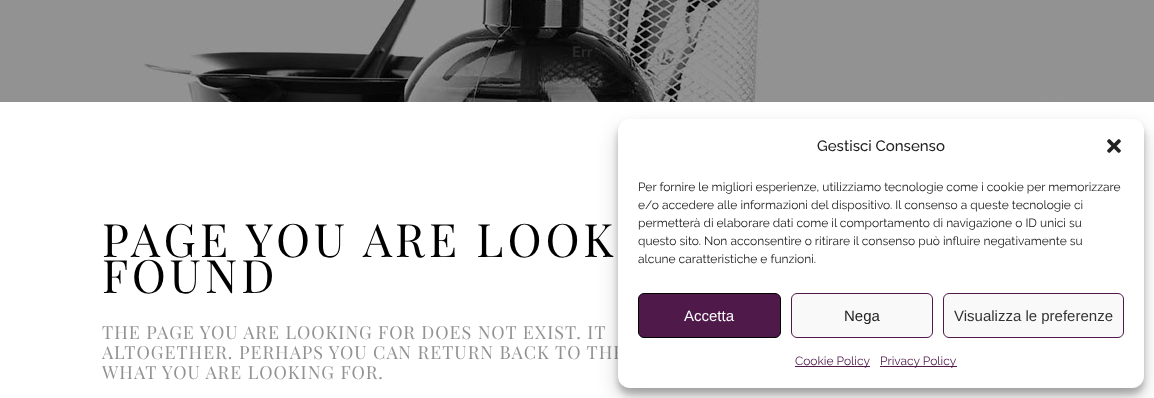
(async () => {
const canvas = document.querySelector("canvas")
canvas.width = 1154
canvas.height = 398
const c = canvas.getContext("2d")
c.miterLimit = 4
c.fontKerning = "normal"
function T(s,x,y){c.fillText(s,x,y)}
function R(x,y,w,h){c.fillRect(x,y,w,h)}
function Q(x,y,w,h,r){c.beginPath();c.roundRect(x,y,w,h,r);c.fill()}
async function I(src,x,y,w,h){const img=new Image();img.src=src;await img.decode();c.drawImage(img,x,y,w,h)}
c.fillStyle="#fff"
R(0,0,1154,398)
await I("1.png",0,0,1154,102)
c.font="bold 15px Raleway"
c.fillStyle="#2a2a2a"
T("Err",572,57)
c.letterSpacing="4px"
c.font="46px Playfair Display"
c.fillStyle="#000"
T("PAGE YOU ARE LOOK",102,257)
T("FOUND",102,293)
c.letterSpacing="1px"
c.font="18px Playfair Display"
c.fillStyle="#929292"
T("THE PAGE YOU ARE LOOKING FOR DOES NOT EXIST. IT",102,339)
T("ALTOGETHER. PERHAPS YOU CAN RETURN BACK TO THE",102,359)
T("WHAT YOU ARE LOOKING FOR.",102,379)
c.fillStyle="#0000003b"
c.filter="blur(3px)"
c.beginPath()
c.roundRect(618,125,526,269,12)
c.fill()
c.filter="none"
c.fillStyle="#00000030"
c.filter="blur(10px)"
c.beginPath()
c.roundRect(618,129,526,269,12)
c.fill()
c.filter="none"
c.fillStyle="#fff"
Q(618,119,526,269,12)
c.letterSpacing="0px"
c.font="500 15px Raleway"
c.fillStyle="#222"
T("Gestisci Consenso",817,151)
await I("2.png",1107,139,14,14)
c.font="12px Raleway"
T("Per fornire le migliori esperienze, utilizziamo tecnologie come i cookie per memorizzare",638,191)
T("e/o accedere alle informazioni del dispositivo. Il consenso a queste tecnologie ci",638,209)
T("permetterà di elaborare dati come il comportamento di navigazione o ID unici su",638,227)
T("questo sito. Non acconsentire o ritirare il consenso può influire negativamente su",638,245)
T("alcune caratteristiche e funzioni.",638,263)
c.fillStyle="#4f194a"
c.beginPath()
c.roundRect(638.5,293.5,142,44,5.5)
c.fill()
c.strokeStyle="#000"
c.stroke()
c.font="15px Liberation Sans"
c.fillStyle="#fff"
T("Accetta",684,321)
c.fillStyle="#f9f9f9"
c.beginPath()
c.roundRect(791.5,293.5,141,44,5.5)
c.fill()
c.strokeStyle="#4f194a"
c.stroke()
c.fillStyle="#222"
T("Nega",844,321)
c.fillStyle="#f9f9f9"
c.beginPath()
c.roundRect(943.5,293.5,180,44,5.5)
c.fill()
c.stroke()
c.fillStyle="#333"
T("Visualizza le preferenze",954,321)
c.fillStyle="#4f194a"
R(795,366,75,1)
c.font="12px Raleway"
T("Cookie Policy",795,365)
R(880,366,77,1)
T("Privacy Policy",880,365)
})()
